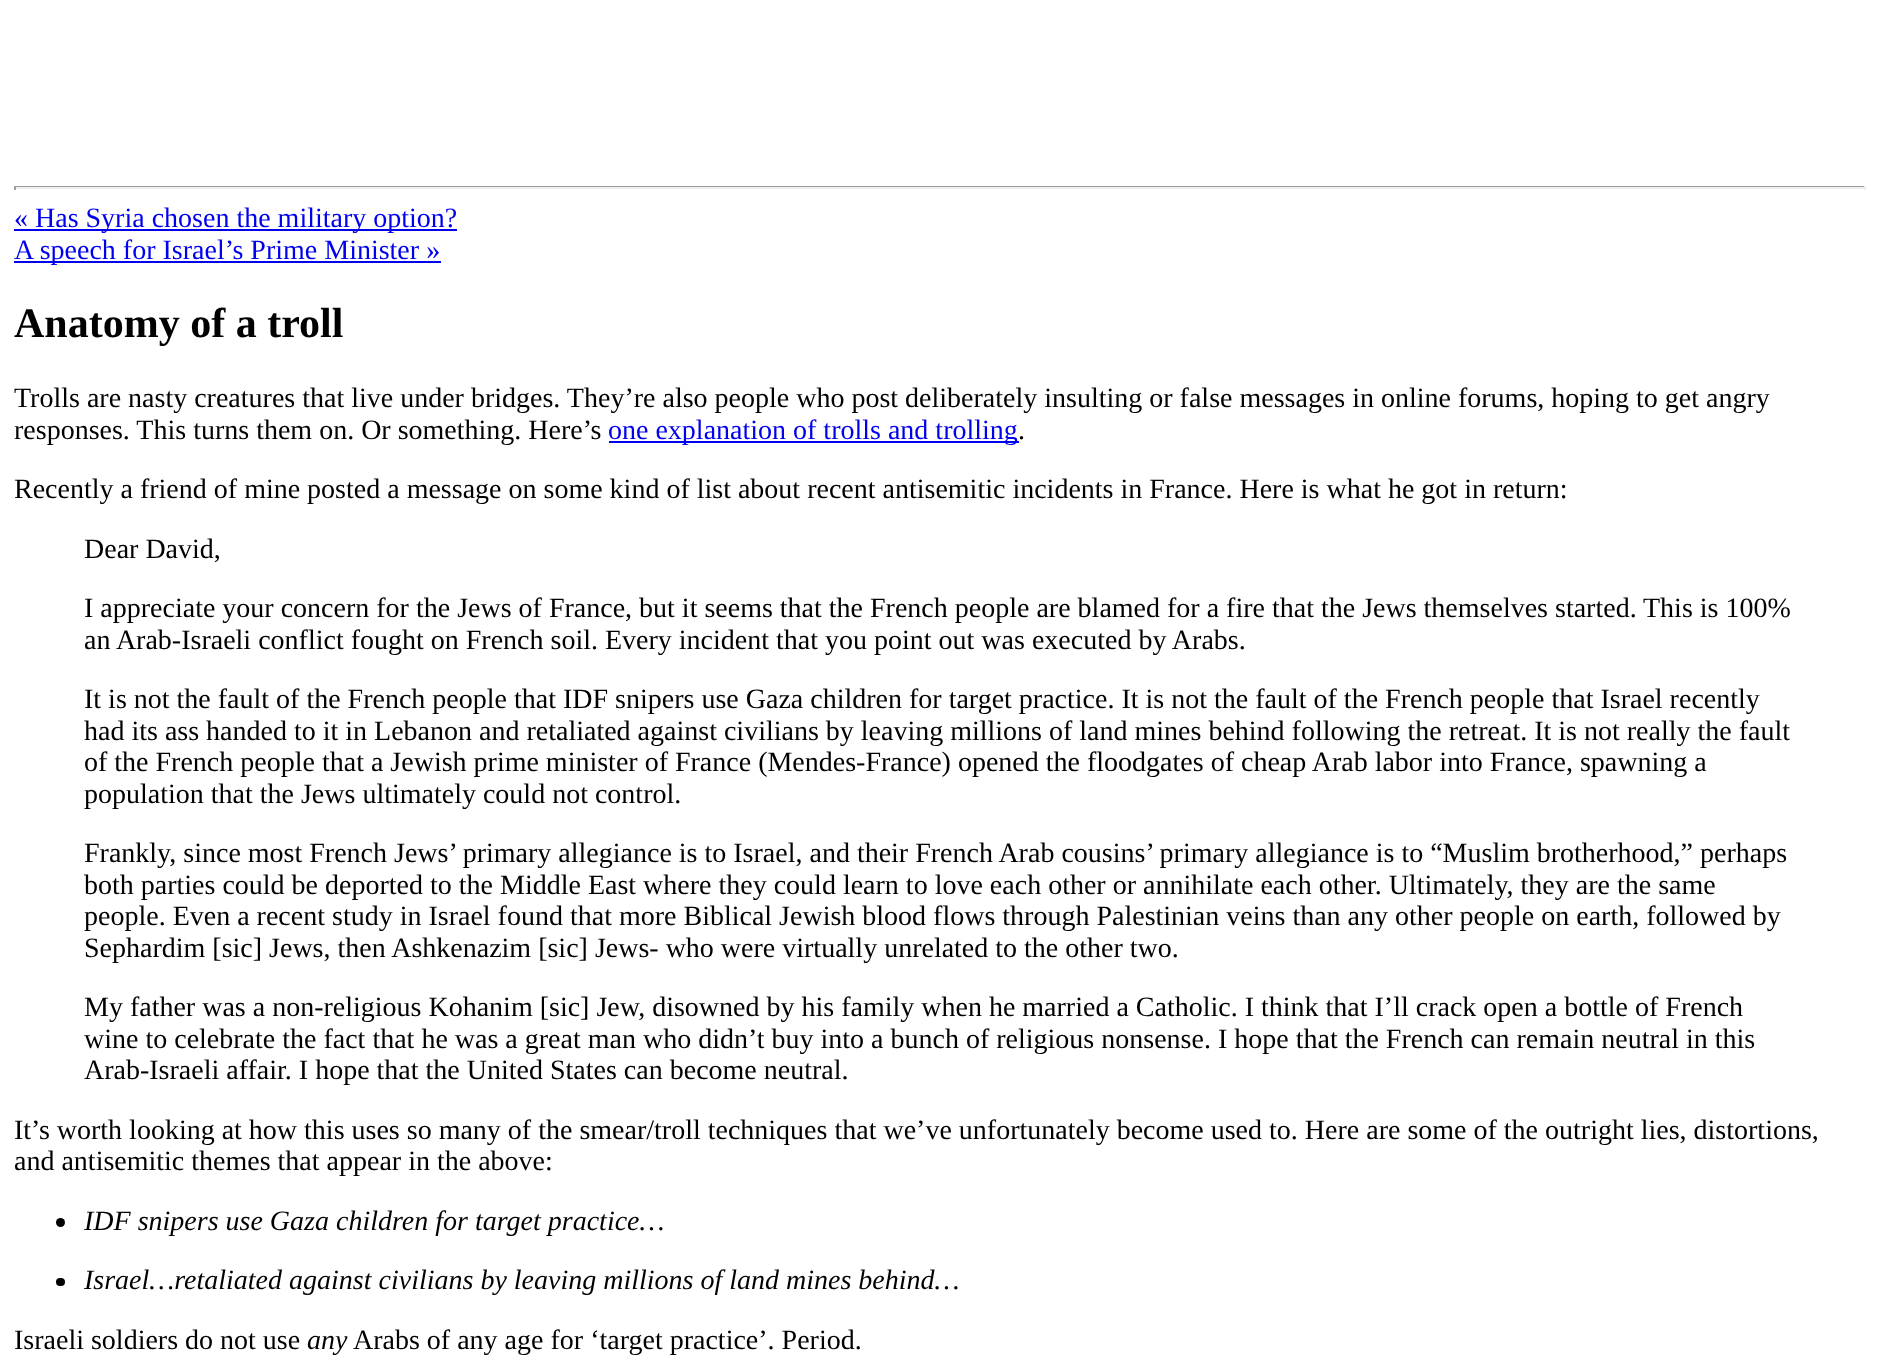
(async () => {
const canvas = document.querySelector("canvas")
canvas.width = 1878
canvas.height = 1365
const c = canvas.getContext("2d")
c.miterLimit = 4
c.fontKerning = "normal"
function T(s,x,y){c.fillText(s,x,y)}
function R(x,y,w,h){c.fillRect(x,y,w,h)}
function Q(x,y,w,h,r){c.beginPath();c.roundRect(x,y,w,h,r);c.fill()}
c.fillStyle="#fff"
R(0,0,1878,1365)
c.fillStyle="#9f9f9f"
R(14,186,1852,1)
c.fillStyle="#eee"
R(1864,186,2,4)
R(14,187,1852,2)
c.fillStyle="#9f9f9f"
R(14,186,2,4)
c.fillStyle="#00e"
R(14,229,443,2)
c.font="28px Liberation Serif"
T("« Has Syria chosen the military option?",14,227)
R(14,261,427,2)
T("A speech for Israel’s Prime Minister »",14,259)
c.font="bold 42px Liberation Serif"
c.fillStyle="#000"
T("Anatomy of a troll",14,337)
c.font="28px Liberation Serif"
T("Trolls are nasty creatures that live under bridges. They’re also people who post deliberately insulting or false messages in online forums, hoping to get angry",14,407)
T("responses. This turns them on. Or something. Here’s",14,439)
c.fillStyle="#00e"
R(609,441,410,2)
T("one explanation of trolls and trolling",608,439)
c.fillStyle="#000"
T(".",1018,439)
T("Recently a friend of mine posted a message on some kind of list about recent antisemitic incidents in France. Here is what he got in return:",14,498)
T("Dear David,",84,558)
T("I appreciate your concern for the Jews of France, but it seems that the French people are blamed for a fire that the Jews themselves started.",84,617)
T("This is 100%",1643,617)
T("an Arab-Israeli conflict fought on French soil. Every incident that you point out was executed by Arabs.",84,649)
T("It is not the fault of the French people that IDF snipers use Gaza children for target practice. It is not the fault of the French people that Israel recently",84,708)
T("had its ass handed to it in Lebanon and retaliated against civilians by leaving millions of land mines behind following the retreat. It is not really the fault",84,740)
T("of the French people that a Jewish prime minister of France (Mendes-France) opened the floodgates of cheap Arab labor into France, spawning a",84,771)
T("population that the Jews ultimately could not control.",84,803)
T("Frankly, since most French Jews’ primary allegiance is to Israel, and their French Arab cousins’ primary allegiance is to “Muslim brotherhood,” perhaps",84,862)
T("both parties could be deported to the Middle East where they could learn to love each other or annihilate each other. Ultimately, they are the same",84,894)
T("people. Even a recent study in Israel found that more Biblical Jewish blood flows through Palestinian veins than any other people on earth, followed by",84,925)
T("Sephardim [sic] Jews, then Ashkenazim [sic] Jews- who were virtually unrelated to the other two.",84,957)
T("My father was a non-religious Kohanim [sic] Jew, disowned by his family when he married a Catholic. I think that I’ll crack open a bottle of French",84,1016)
T("wine to celebrate the fact that he was a great man who didn’t buy into a bunch of religious nonsense. I hope that the French can remain neutral in this",84,1048)
T("Arab-Israeli affair. I hope that the United States can become neutral.",84,1079)
T("It’s worth looking at how this uses so many of the smear/troll techniques that we’ve unfortunately become used to. Here are some of the outright lies, distortions,",14,1139)
T("and antisemitic themes that appear in the above:",14,1170)
c.beginPath()
c.arc(60.5,1222.5,4.5,0,7)
c.fill()
c.font="italic 28px Liberation Serif"
T("IDF snipers use Gaza children for target practice…",84,1230)
Q(56,1278,9,8,4)
T("Israel…retaliated against civilians by leaving millions of land mines behind…",84,1289)
c.font="28px Liberation Serif"
T("Israeli soldiers do not use",14,1349)
c.font="italic 28px Liberation Serif"
T("any",307,1349)
c.font="28px Liberation Serif"
T("Arabs of any age for ‘target practice’. Period.",353,1349)
})()
